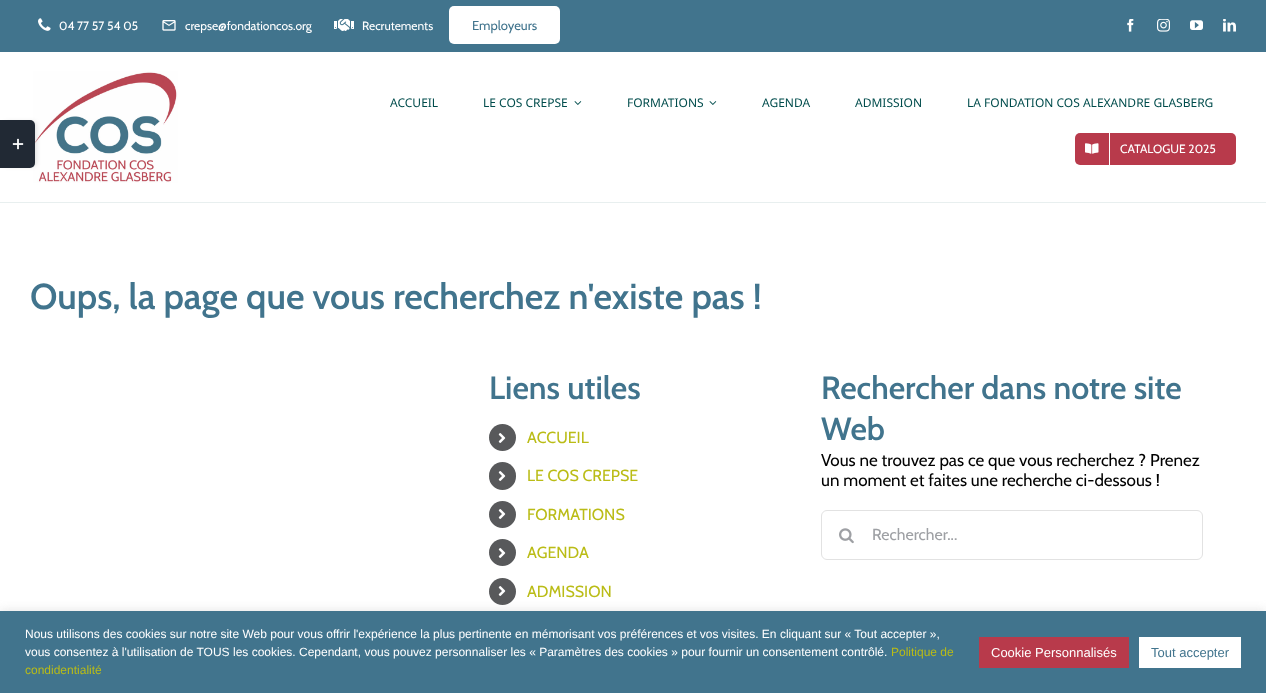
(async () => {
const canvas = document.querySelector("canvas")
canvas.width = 1266
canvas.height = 693
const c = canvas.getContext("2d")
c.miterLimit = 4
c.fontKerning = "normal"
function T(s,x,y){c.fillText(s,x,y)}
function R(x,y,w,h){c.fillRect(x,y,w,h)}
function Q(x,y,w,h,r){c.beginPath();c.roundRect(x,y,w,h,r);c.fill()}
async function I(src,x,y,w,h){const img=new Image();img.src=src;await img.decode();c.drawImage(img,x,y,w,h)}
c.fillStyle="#fff"
R(0,0,1266,693)
await I("9.png",33,71,145,112)
c.fillStyle="#00000024"
c.filter="blur(2.5px)"
c.beginPath()
c.roundRect(5,122,31,44,3)
c.fill()
c.filter="none"
c.fillStyle="#212934"
c.beginPath()
c.roundRect(0,120,35,48,[0,5,5,0])
c.fill()
await I("1.png",12,138,12,12)
c.fillStyle="#41748d"
R(0,0,1266,52)
await I("2.png",38,18,13,13)
c.font="12px Cabin"
c.fillStyle="#fff"
T("04 77 57 54 05",59,30)
await I("3.png",162,20,14,11)
T("crepse@fondationcos.org",185,30)
await I("4.png",334,19,20,12)
T("Recrutements",362,30)
Q(449,6,111,38,5)
c.font="13px Cabin"
c.fillStyle="#41748d"
T("Employeurs",472,30)
await I("5.png",1127,19,7,13)
await I("6.png",1157,19,13,13)
await I("7.png",1190,20,13,10)
await I("8.png",1223,19,13,13)
c.fillStyle="#e8efef"
R(0,202,1266,1)
c.font="12px Noto Sans"
c.fillStyle="#004c4c"
T("ACCUEIL",390,107)
T("LE COS CREPSE",483,107)
await I("10.png",574,101,8,4)
T("FORMATIONS",627,107)
await I("10.png",709,101,8,4)
T("AGENDA",762,107)
T("ADMISSION",855,107)
T("LA FONDATION COS ALEXANDRE GLASBERG",967,107)
c.fillStyle="#b83a4b"
Q(1075,133,161,32,5)
c.fillStyle="#fff"
R(1109,133,1,32)
await I("11.png",1085,143,14,11)
c.font="12px Cabin"
T("CATALOGUE 2025",1120,153)
c.font="600 36px Cabin"
c.fillStyle="#41748d"
T("Oups, la page que vous recherchez n'existe pas !",30,309)
c.font="600 32px Cabin"
T("Liens utiles",489,399)
c.fillStyle="#58595b"
c.beginPath()
c.arc(502.5,437.5,13.5,0,7)
c.fill()
await I("12.png",498,433,8,10)
c.font="16px Cabin"
c.fillStyle="#babc16"
T("ACCUEIL",527,443)
c.fillStyle="#58595b"
Q(489,462,27,28,13.5)
await I("12.png",498,471,8,10)
c.fillStyle="#babc16"
T("LE COS CREPSE",527,481)
c.fillStyle="#58595b"
c.beginPath()
c.arc(502.5,514.5,13.5,0,7)
c.fill()
await I("12.png",498,509,8,10)
c.fillStyle="#babc16"
T("FORMATIONS",527,520)
c.fillStyle="#58595b"
c.beginPath()
c.arc(502.5,552.5,13.5,0,7)
c.fill()
await I("12.png",498,548,8,10)
c.fillStyle="#babc16"
T("AGENDA",527,558)
c.fillStyle="#58595b"
c.beginPath()
c.arc(502.5,591.5,13.5,0,7)
c.fill()
await I("12.png",498,586,8,10)
c.fillStyle="#babc16"
T("ADMISSION",527,597)
c.font="600 32px Cabin"
c.fillStyle="#41748d"
T("Rechercher dans notre site",821,399)
T("Web",821,440)
c.font="17px Cabin"
c.fillStyle="#000"
T("Vous ne trouvez pas ce que vous recherchez ? Prenez",821,466)
T("un moment et faites une recherche ci-dessous !",821,486)
c.beginPath()
c.roundRect(821.5,510.5,381,49,5.5)
c.strokeStyle="#e2e2e2"
c.stroke()
await I("13.png",839,528,15,16)
c.font="16px Cabin"
c.fillStyle="#9ea0a4"
T("Rechercher...",872,540)
c.fillStyle="#acabab4d"
c.filter="blur(5px)"
c.beginPath()
c.rect(0,610,1266,82)
c.fill()
c.filter="none"
c.fillStyle="#41748d"
R(0,611,1266,82)
c.font="12px Liberation Sans"
c.fillStyle="#fff"
T("Nous utilisons des cookies sur notre site Web pour vous offrir l'expérience la plus pertinente en mémorisant vos préférences et vos visites. En cliquant sur « Tout accepter »,",25,638)
T("vous consentez à l'utilisation de TOUS les cookies. Cependant, vous pouvez personnaliser les « Paramètres des cookies » pour fournir un consentement contrôlé.",25,656)
c.fillStyle="#babc16"
T("Politique de",891,656)
T("condidentialité",25,674)
c.fillStyle="#b83a4b"
R(979,637,150,31)
c.font="13px Liberation Sans"
c.fillStyle="#fff"
T("Cookie Personnalisés",991,657)
R(1139,637,102,31)
c.fillStyle="#41748d"
T("Tout accepter",1151,657)
})()
